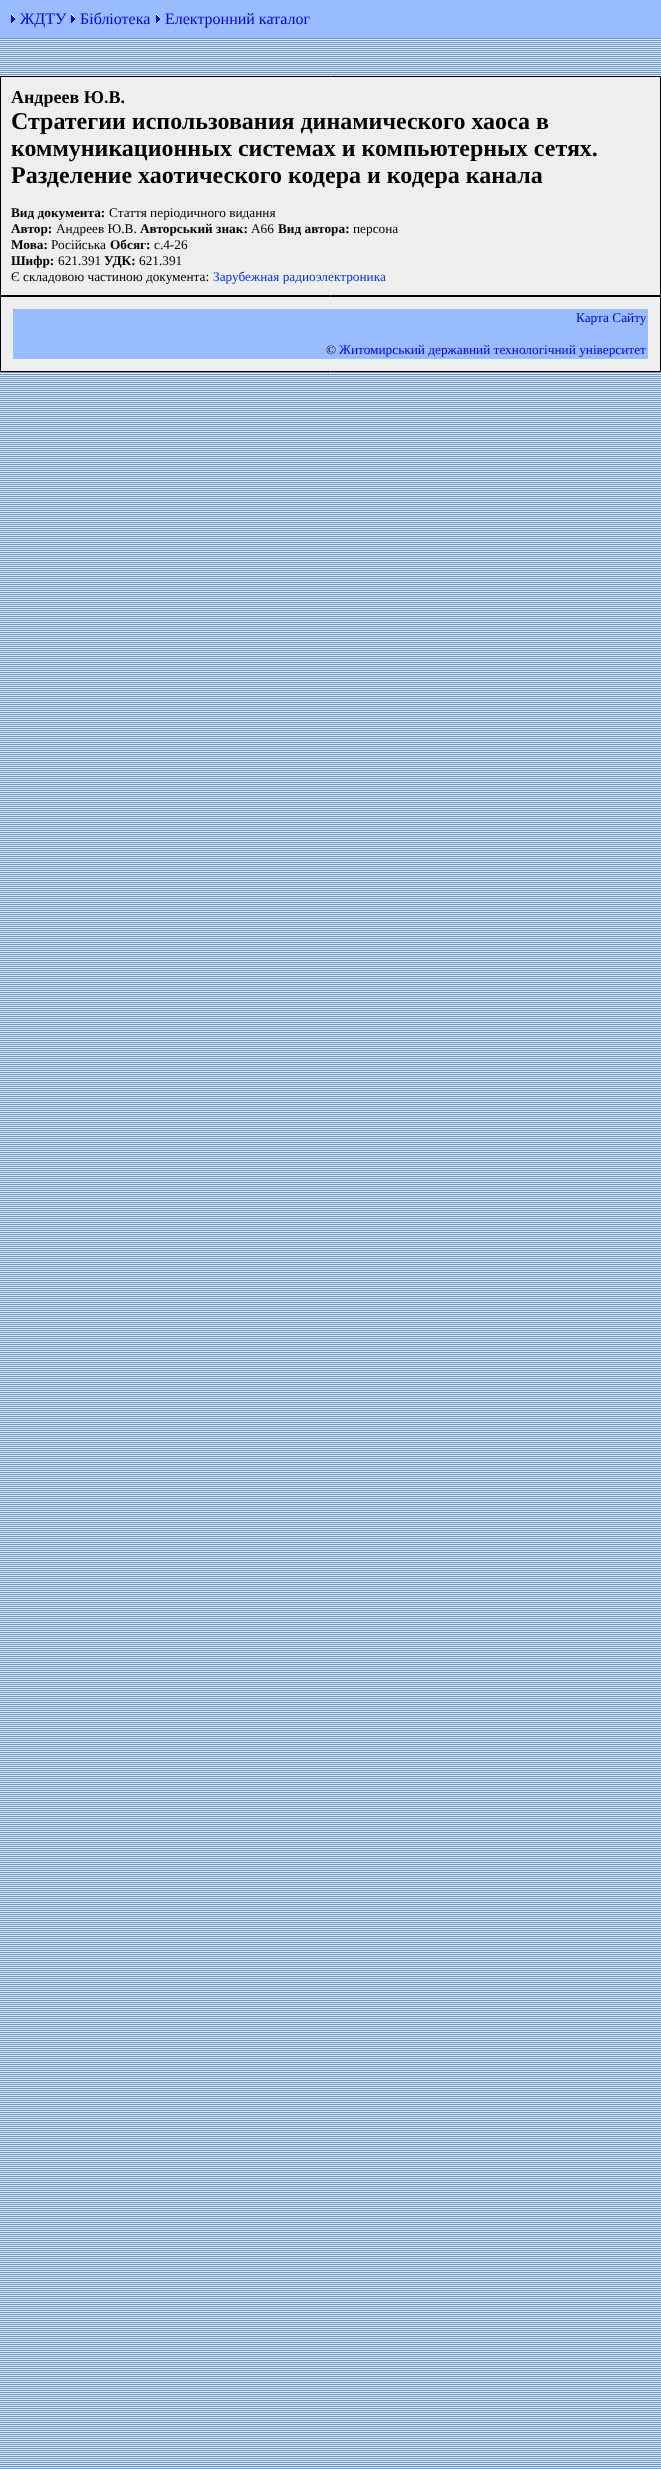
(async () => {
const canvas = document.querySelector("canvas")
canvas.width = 661
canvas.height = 2469
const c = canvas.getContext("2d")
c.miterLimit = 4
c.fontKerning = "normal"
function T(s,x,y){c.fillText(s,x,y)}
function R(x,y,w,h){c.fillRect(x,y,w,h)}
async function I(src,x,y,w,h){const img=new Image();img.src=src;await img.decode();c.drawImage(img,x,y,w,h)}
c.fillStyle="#fff"
R(0,0,661,2469)
await I("1.png",0,38,661,2431)
c.fillStyle="#9bf"
R(0,0,661,38)
await I("2.png",11,14,4,9)
c.font="16px Liberation Serif"
c.fillStyle="#00f"
T("ЖДТУ",20,24)
await I("2.png",71,14,4,9)
T("Бібліотека",80,24)
await I("2.png",156,14,4,9)
T("Електронний каталог",165,24)
c.fillStyle="#eee"
c.beginPath()
c.rect(.5,76.5,660,219)
c.fill()
c.strokeStyle="#000"
c.stroke()
c.font="bold 18px Liberation Serif"
c.fillStyle="#000"
T("Андреев Ю.В.",11,103)
c.font="bold 24px Liberation Serif"
T("Стратегии использования динамического хаоса в",11,129)
T("коммуникационных системах и компьютерных сетях.",11,156)
T("Разделение хаотического кодера и кодера канала",11,183)
c.font="bold 13.3px Liberation Serif"
T("Вид документа:",11,217)
c.font="13.3px Liberation Serif"
T("Стаття періодичного видання",109,217)
c.font="bold 13.3px Liberation Serif"
T("Автор:",11,233)
c.font="13.3px Liberation Serif"
T("Андреев Ю.В.",56,233)
c.font="bold 13.3px Liberation Serif"
T("Авторський знак:",140,233)
c.font="13.3px Liberation Serif"
T("А66",251,233)
c.font="bold 13.3px Liberation Serif"
T("Вид автора:",278,233)
c.font="13.3px Liberation Serif"
T("персона",353,233)
c.font="bold 13.3px Liberation Serif"
T("Мова:",11,249)
c.font="13.3px Liberation Serif"
T("Російська",51,249)
c.font="bold 13.3px Liberation Serif"
T("Обсяг:",110,249)
c.font="13.3px Liberation Serif"
T("с.4-26",154,249)
c.font="bold 13.3px Liberation Serif"
T("Шифр:",11,265)
c.font="13.3px Liberation Serif"
T("621.391",58,265)
c.font="bold 13.3px Liberation Serif"
T("УДК:",104,265)
c.font="13.3px Liberation Serif"
T("621.391",139,265)
T("Є складовою частиною документа:",11,281)
c.fillStyle="#0039e6"
T("Зарубежная радиоэлектроника",213,281)
c.fillStyle="#eee"
c.beginPath()
c.rect(.5,296.5,660,75)
c.fill()
c.stroke()
c.fillStyle="#9bf"
R(13,309,635,50)
c.fillStyle="#00f"
T("Карта Сайту",576,322)
c.fillStyle="#000"
T("©",326,354)
c.fillStyle="#00f"
T("Житомирський державний технологiчний університет",339,354)
})()
